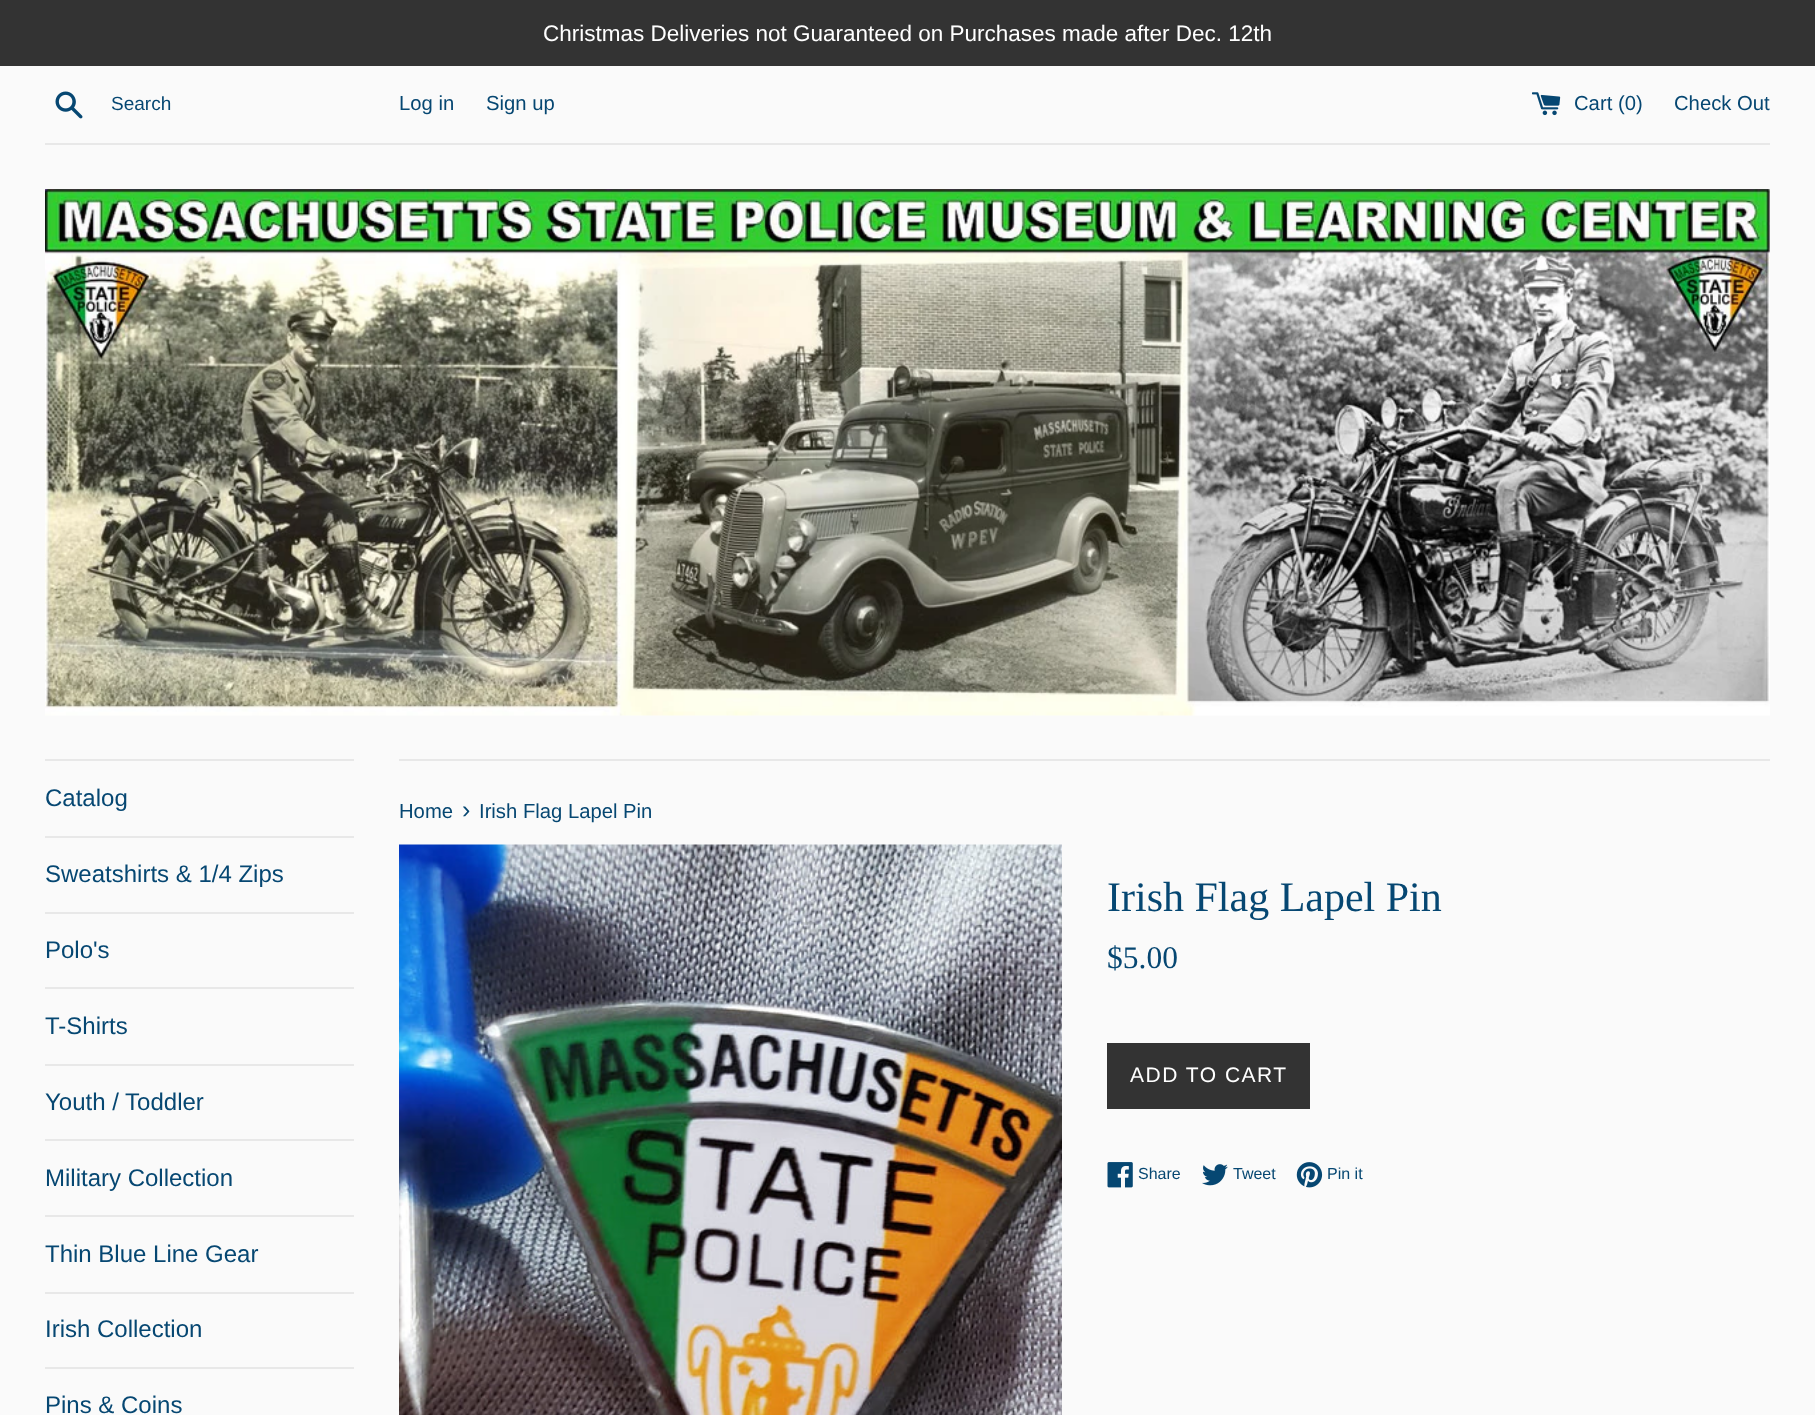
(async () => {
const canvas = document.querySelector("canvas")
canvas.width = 1815
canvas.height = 1415
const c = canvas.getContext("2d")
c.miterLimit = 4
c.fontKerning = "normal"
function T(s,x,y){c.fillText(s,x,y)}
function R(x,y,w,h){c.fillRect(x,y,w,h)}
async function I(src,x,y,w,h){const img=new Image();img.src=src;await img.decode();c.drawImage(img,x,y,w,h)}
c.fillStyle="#fafafa"
R(0,0,1815,1415)
c.fillStyle="#333"
R(0,0,1815,66)
c.font="22.5px Liberation Sans"
c.fillStyle="#fff"
T("Christmas Deliveries not Guaranteed on Purchases made after Dec. 12th",543,41)
await I("1.png",55,91,28,28)
c.font="19px Liberation Sans"
c.fillStyle="#064772"
T("Search",111,110)
c.font="20.25px Liberation Sans"
T("Log in",399,110)
T("Sign up",486,110)
await I("2.png",1532,92,29,24)
T("Cart (0)",1574,110)
T("Check Out",1674,110)
c.fillStyle="#e8e8e8"
R(45,143,1725,2)
await I("3.png",45,189,1725,527)
R(45,759,309,2)
R(45,836,309,2)
c.font="24px Liberation Sans"
c.fillStyle="#064772"
T("Catalog",45,806)
c.fillStyle="#e8e8e8"
R(45,912,309,2)
c.fillStyle="#064772"
T("Sweatshirts & 1/4 Zips",45,882)
c.fillStyle="#e8e8e8"
R(45,987,309,2)
c.fillStyle="#064772"
T("Polo's",45,958)
c.fillStyle="#e8e8e8"
R(45,1064,309,2)
c.fillStyle="#064772"
T("T-Shirts",45,1034)
c.fillStyle="#e8e8e8"
R(45,1139,309,2)
c.fillStyle="#064772"
T("Youth / Toddler",45,1110)
c.fillStyle="#e8e8e8"
R(45,1215,309,2)
c.fillStyle="#064772"
T("Military Collection",45,1186)
c.fillStyle="#e8e8e8"
R(45,1292,309,2)
c.fillStyle="#064772"
T("Thin Blue Line Gear",45,1262)
c.fillStyle="#e8e8e8"
R(45,1367,309,2)
c.fillStyle="#064772"
T("Irish Collection",45,1337)
T("Pins & Coins",45,1413)
c.fillStyle="#e8e8e8"
R(399,759,1371,2)
c.font="20.25px Liberation Sans"
c.fillStyle="#064772"
T("Home",399,818)
c.font="25px Liberation Sans"
T("›",462,818)
c.font="20.25px Liberation Sans"
T("Irish Flag Lapel Pin",479,818)
await I("4.png",399,844,663,571)
c.font="42px Liberation Serif"
T("Irish Flag Lapel Pin",1107,911)
c.font="31.5px Liberation Serif"
T("$5.00",1107,968)
c.fillStyle="#333"
R(1107,1043,203,66)
c.letterSpacing="1.5px"
c.font="21px Liberation Sans"
c.fillStyle="#fff"
T("ADD TO CART",1130,1082)
await I("5.png",1107,1162,26,26)
c.letterSpacing="0px"
c.font="16px Liberation Sans"
c.fillStyle="#064772"
T("Share",1138,1179)
await I("6.png",1202,1164,26,22)
T("Tweet",1233,1179)
await I("7.png",1296,1162,27,26)
T("Pin it",1327,1179)
})()
